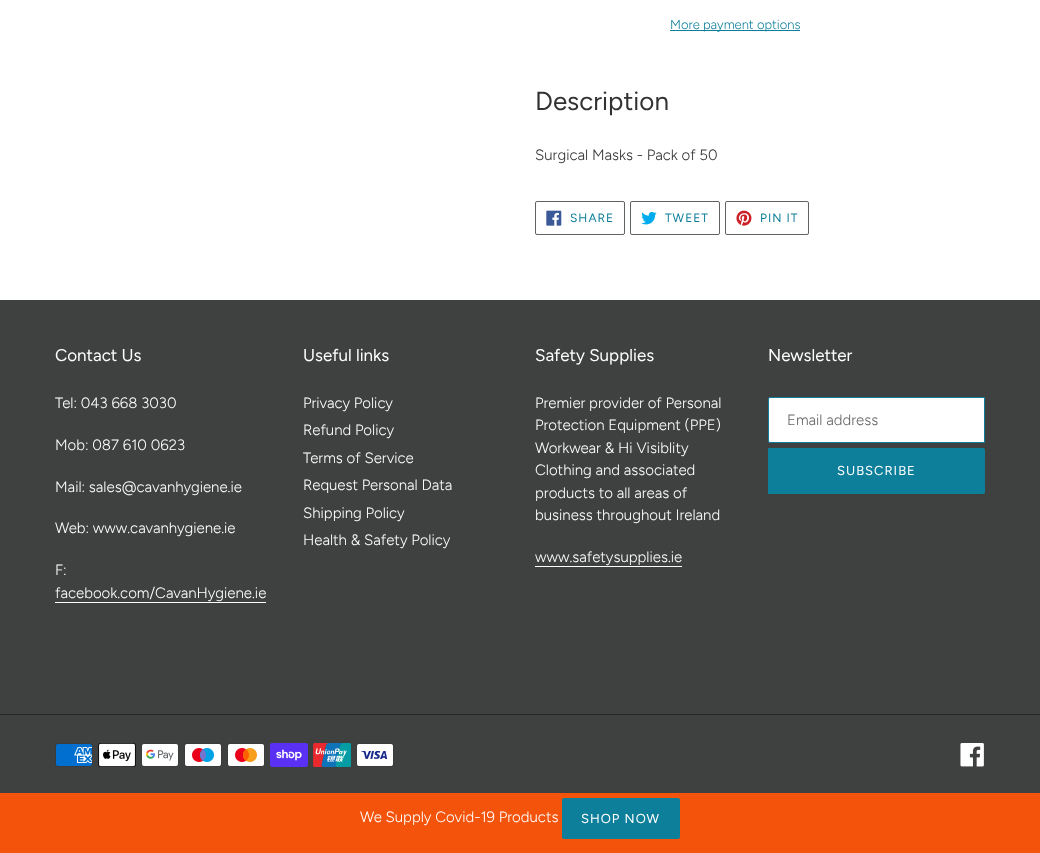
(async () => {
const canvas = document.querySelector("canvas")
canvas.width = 1040
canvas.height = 853
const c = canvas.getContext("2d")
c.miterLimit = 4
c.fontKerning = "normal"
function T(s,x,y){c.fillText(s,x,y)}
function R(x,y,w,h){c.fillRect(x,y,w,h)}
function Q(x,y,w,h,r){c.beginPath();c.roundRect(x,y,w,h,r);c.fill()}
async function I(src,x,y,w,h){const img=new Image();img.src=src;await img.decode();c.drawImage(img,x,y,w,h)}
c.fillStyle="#fff"
R(0,0,1040,853)
c.fillStyle="#0e7f9a"
R(670,30,130,1)
c.font="300 13px Figtree"
T("More payment options",670,29)
c.font="26px Figtree"
c.fillStyle="#333232"
T("Description",535,110)
c.font="300 15px Figtree"
T("Surgical Masks - Pack of 50",535,160)
c.beginPath()
c.roundRect(535.5,201.5,89,33,1.5)
c.strokeStyle="#5f6363"
c.stroke()
await I("1.png",546,210,16,16)
c.letterSpacing="1px"
c.font="12px Figtree"
c.fillStyle="#0e7f9a"
T("SHARE",570,222)
c.beginPath()
c.roundRect(630.5,201.5,89,33,1.5)
c.stroke()
await I("2.png",641,211,16,14)
T("TWEET",665,222)
c.beginPath()
c.roundRect(725.5,201.5,83,33,1.5)
c.stroke()
await I("3.png",736,210,16,16)
T("PIN IT",760,222)
c.fillStyle="#3f4141"
R(0,300,1040,493)
c.letterSpacing="0px"
c.font="17px Figtree"
c.fillStyle="#fff"
T("Contact Us",55,361)
c.font="300 15px Figtree"
T("Tel: 043 668 3030",55,408)
T("Mob: 087 610 0623",55,450)
T("Mail: sales@cavanhygiene.ie",55,492)
T("Web: www.cavanhygiene.ie",55,533)
T("F:",55,575)
T("facebook.com/CavanHygiene.ie",55,598)
R(55,602,211,1)
c.font="17px Figtree"
T("Useful links",303,361)
c.font="300 15px Figtree"
T("Privacy Policy",303,408)
T("Refund Policy",303,435)
T("Terms of Service",303,463)
T("Request Personal Data",303,490)
T("Shipping Policy",303,518)
T("Health & Safety Policy",303,545)
c.font="17px Figtree"
T("Safety Supplies",535,361)
c.font="300 15px Figtree"
T("Premier provider of Personal",535,408)
T("Protection Equipment (PPE)",535,430)
T("Workwear & Hi Visiblity",535,453)
T("Clothing and associated",535,475)
T("products to all areas of",535,498)
T("business throughout Ireland",535,520)
T("www.safetysupplies.ie",535,562)
R(535,566,147,1)
c.font="17px Figtree"
T("Newsletter",768,361)
c.beginPath()
c.roundRect(768.5,397.5,216,45,[1.5,0,0,1.5])
c.fill()
c.strokeStyle="#0e7f9a"
c.stroke()
c.font="300 15px Figtree"
c.fillStyle="#666"
T("Email address",787,425)
c.fillStyle="#0e7f9a"
c.beginPath()
c.roundRect(768,448,217,46,[0,2,2,0])
c.fill()
c.letterSpacing="1px"
c.font="13px Figtree"
c.fillStyle="#fff"
T("SUBSCRIBE",837,475)
c.fillStyle="#262727"
R(0,714,1040,1)
await I("4.png",55,743,38,24)
await I("5.png",98,743,38,24)
await I("6.png",141,743,38,24)
await I("7.png",184,743,38,24)
await I("8.png",227,743,38,24)
await I("9.png",270,743,38,24)
await I("10.png",313,743,38,24)
await I("11.png",356,743,38,24)
await I("12.png",960,743,24,24)
c.fillStyle="#f3530a"
R(0,793,1040,60)
c.letterSpacing="0px"
c.font="300 15px Figtree"
c.fillStyle="#fff"
T("We Supply Covid-19 Products",360,822)
c.fillStyle="#0e7f9a"
Q(562,798,118,41,2)
c.letterSpacing="1px"
c.font="13px Figtree"
c.fillStyle="#fff"
T("SHOP NOW",581,823)
})()
